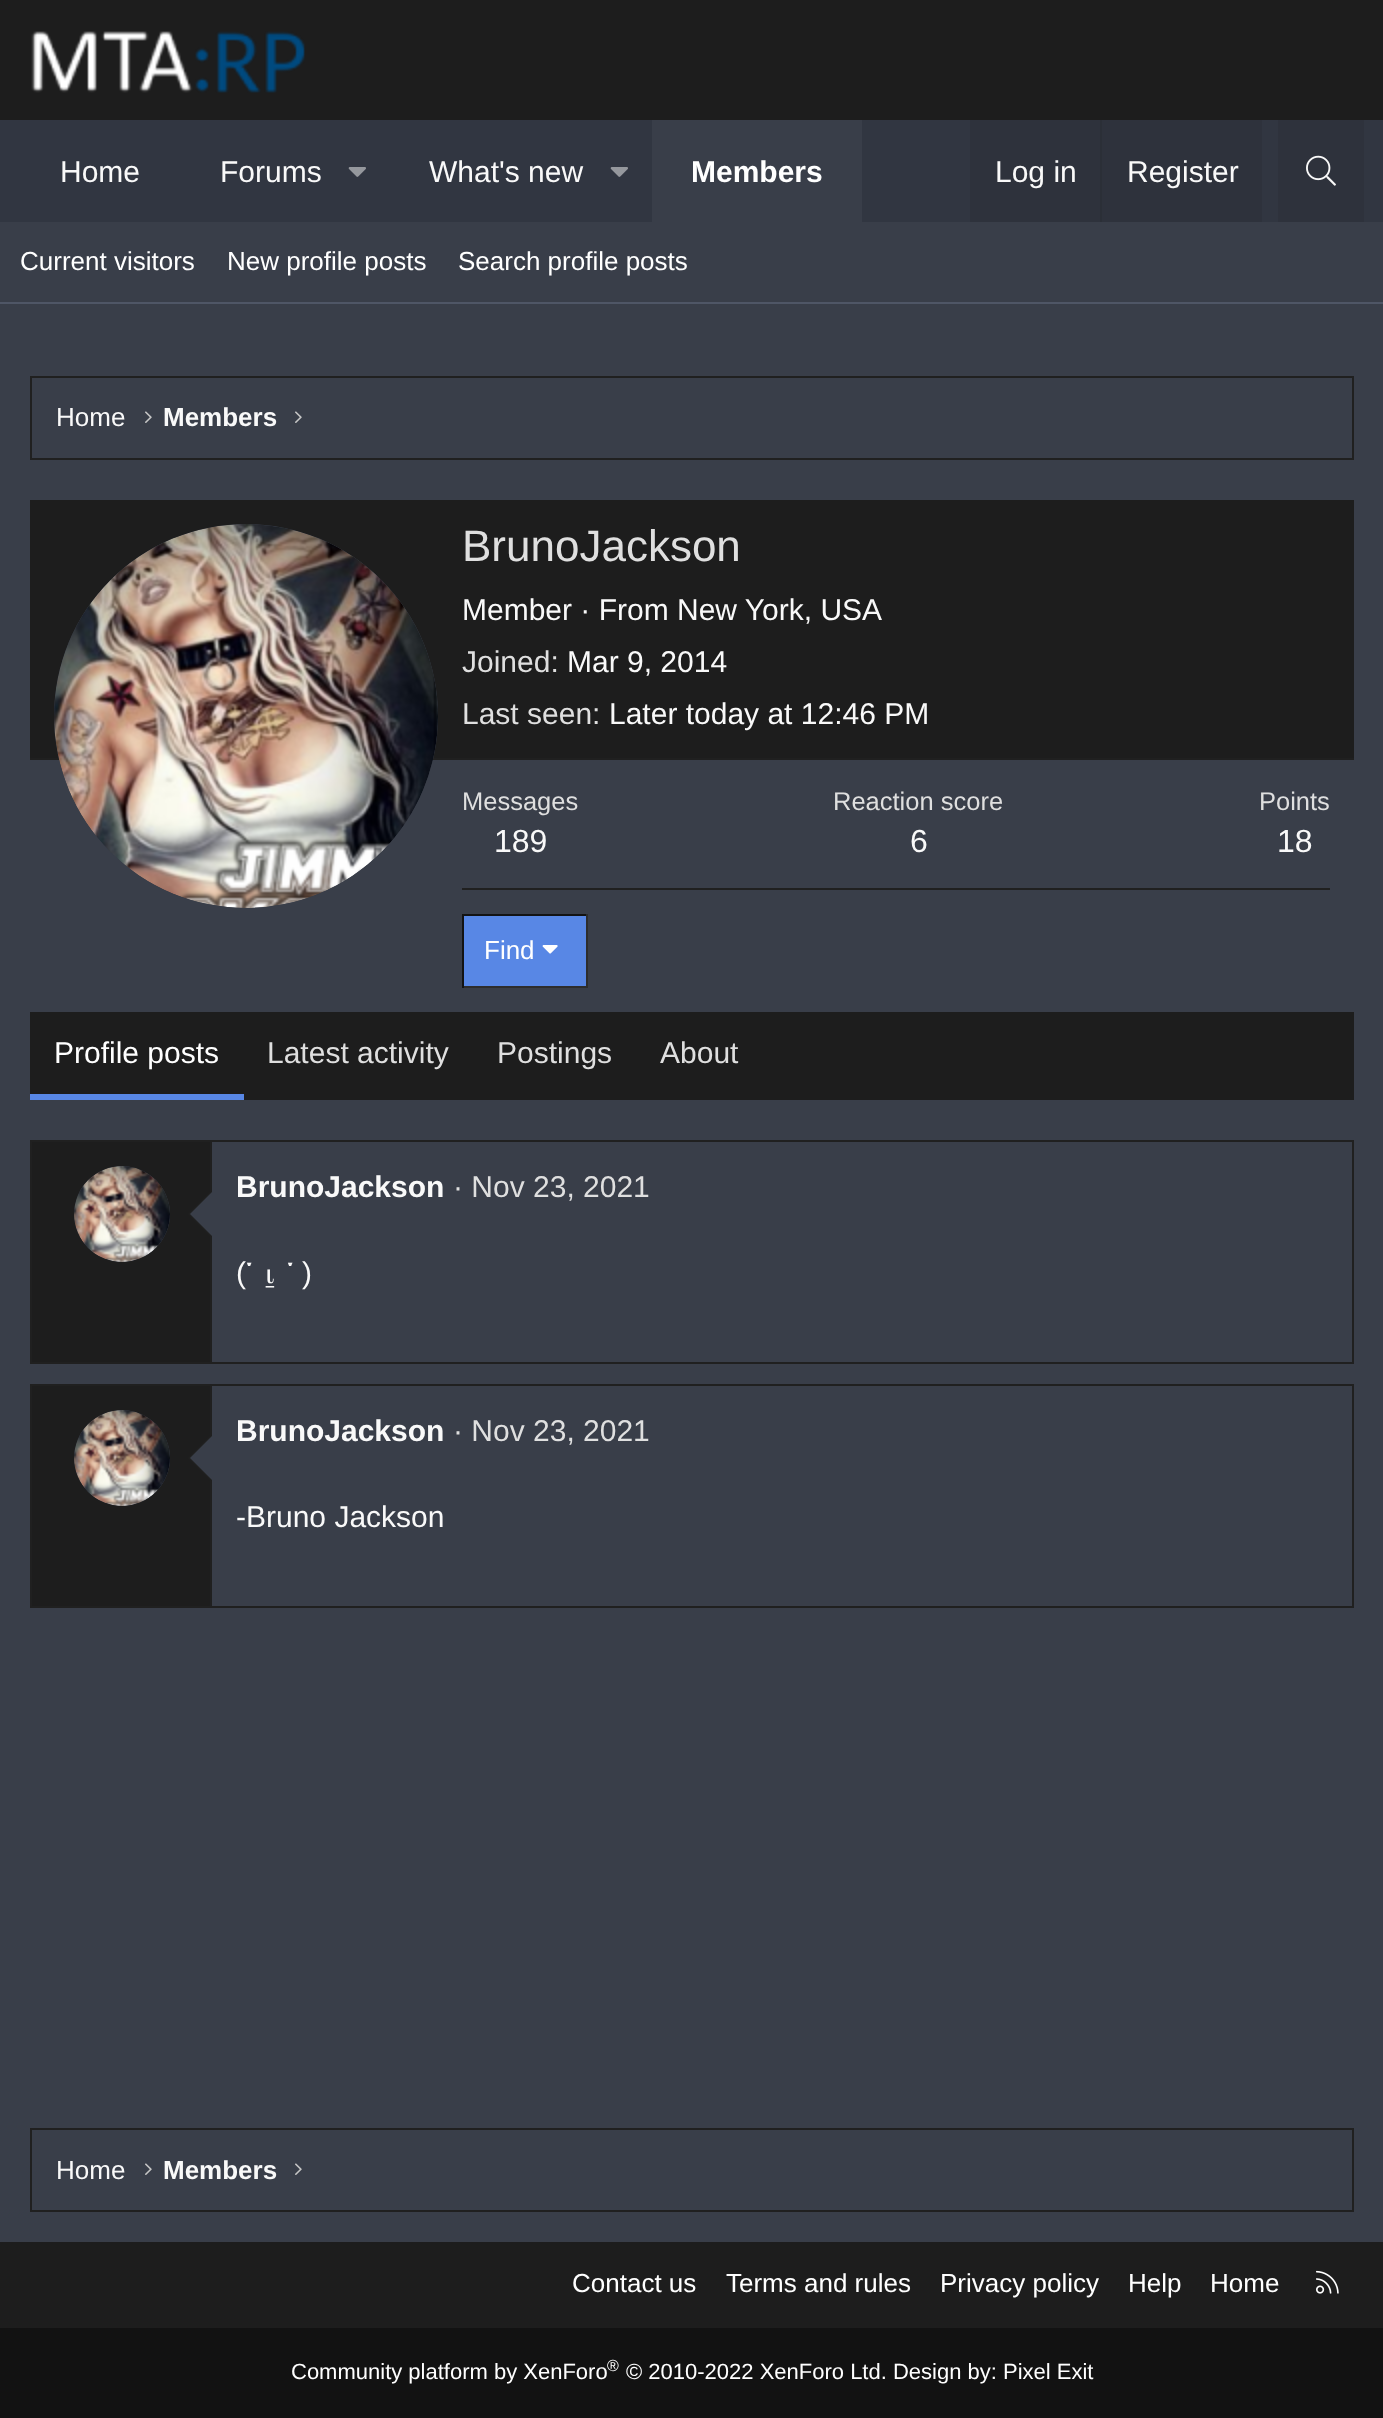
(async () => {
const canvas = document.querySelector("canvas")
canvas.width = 1383
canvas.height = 2418
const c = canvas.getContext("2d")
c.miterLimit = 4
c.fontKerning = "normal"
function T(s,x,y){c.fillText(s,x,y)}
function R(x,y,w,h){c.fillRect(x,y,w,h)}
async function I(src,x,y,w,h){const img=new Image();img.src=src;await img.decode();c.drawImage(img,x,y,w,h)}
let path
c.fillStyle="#1d1d1d"
R(0,0,1383,2418)
await I("1.png",31,31,274,62)
c.fillStyle="#313641"
R(0,120,1383,102)
c.font="30px Liberation Sans"
c.fillStyle="#f9f9f9"
T("Home",60,182)
T("Forums",220,182)
await I("2.png",348,167,18,10)
T("What's new",429,182)
await I("2.png",610,167,18,10)
c.fillStyle="#393e49"
R(652,120,210,102)
c.font="bold 30px Liberation Sans"
c.fillStyle="#fff"
T("Members",691,182)
c.fillStyle="#2e323c"
R(970,120,292,102)
c.font="30px Liberation Sans"
c.fillStyle="#f9f9f9"
T("Log in",995,182)
c.fillStyle="#2b2f37"
R(1100,120,2,102)
c.fillStyle="#f9f9f9"
T("Register",1127,182)
c.fillStyle="#2e323c"
R(1278,120,86,102)
await I("3.png",1306,155,30,31)
c.fillStyle="#393e49"
R(0,222,1383,80)
c.fillStyle="#4f5666"
R(0,302,1383,2)
c.font="26px Liberation Sans"
c.fillStyle="#fff"
T("Current visitors",20,270)
T("New profile posts",227,270)
T("Search profile posts",458,270)
c.fillStyle="#393e49"
R(0,304,1383,1938)
c.strokeStyle="#202020"
c.lineWidth=2
c.strokeRect(31,377,1322,82)
c.fillStyle="#f9f9f9"
T("Home",56,426)
await I("4.png",145,411,7,12)
c.font="bold 26px Liberation Sans"
T("Members",163,426)
await I("4.png",295,411,7,12)
c.fillStyle="#1d1d1d"
R(30,500,1324,258)
c.fillStyle="#202020"
R(30,758,1324,2)
c.fillStyle="#393e49"
c.beginPath()
c.arc(246,716,192,0,7)
c.fill()
await I("5.png",54,524,384,384)
c.font="44px Liberation Sans"
c.fillStyle="#dfdfdf"
T("BrunoJackson",462,561)
c.font="30px Liberation Sans"
c.fillStyle="#f9f9f9"
T("Member · From New York, USA",462,620)
c.fillStyle="#dfdfdf"
T("Joined:",462,672)
c.fillStyle="#f9f9f9"
T("Mar 9, 2014",567,672)
c.fillStyle="#dfdfdf"
T("Last seen:",462,724)
c.fillStyle="#f9f9f9"
T("Later today at 12:46 PM",609,724)
c.font="25.5px Liberation Sans"
c.fillStyle="#dfdfdf"
T("Messages",462,810)
c.font="32px Liberation Sans"
c.fillStyle="#f9f9f9"
T("189",494,852)
c.font="25.5px Liberation Sans"
c.fillStyle="#dfdfdf"
T("Reaction score",833,810)
c.font="32px Liberation Sans"
c.fillStyle="#f9f9f9"
T("6",910,852)
c.font="25.5px Liberation Sans"
c.fillStyle="#dfdfdf"
T("Points",1259,810)
c.font="32px Liberation Sans"
c.fillStyle="#f9f9f9"
T("18",1277,852)
c.fillStyle="#202020"
R(462,888,868,2)
c.fillStyle="#5887e5"
R(464,916,122,70)
c.fillStyle="#131313"
R(462,914,126,2)
c.fillStyle="#2d2d2d"
R(586,914,2,74)
R(462,986,126,2)
c.fillStyle="#131313"
R(462,914,2,74)
c.font="26px Liberation Sans"
c.fillStyle="#fff"
T("Find",484,959)
await I("6.png",542,945,16,9)
c.fillStyle="#1d1d1d"
R(30,1012,1324,88)
c.fillStyle="#5887e5"
R(30,1094,214,6)
c.font="30px Liberation Sans"
c.fillStyle="#fff"
T("Profile posts",54,1063)
c.fillStyle="#dfdfdf"
T("Latest activity",267,1063)
T("Postings",497,1063)
T("About",660,1063)
c.strokeRect(31,1141,1322,222)
c.fillStyle="#1d1d1d"
R(32,1142,178,220)
c.fillStyle="#202020"
R(210,1142,2,220)
c.fillStyle="#393e49"
c.beginPath()
c.arc(122,1214,48,0,7)
c.fill()
await I("7.png",74,1166,96,96)
c.fillStyle="#202020"
path = new Path2D("M212 1190v48l-24-24z")
c.fill(path)
c.fillStyle="#393e49"
path = new Path2D("M212 1192v44l-22-22z")
c.fill(path)
c.font="bold 30px Liberation Sans"
c.fillStyle="#f9f9f9"
T("BrunoJackson",236,1197)
c.font="30px Liberation Sans"
c.fillStyle="#dfdfdf"
T("· Nov 23, 2021",453,1197)
c.fillStyle="#f9f9f9"
T("(",236,1283)
c.font="30px Noto Serif Tibetan"
T("་",246,1283)
T("་",287,1283)
c.font="30px Liberation Sans"
T(")",302,1283)
c.font="30px FreeSerif"
T("⍸",261,1283)
c.strokeRect(31,1385,1322,222)
c.fillStyle="#1d1d1d"
R(32,1386,178,220)
c.fillStyle="#202020"
R(210,1386,2,220)
c.fillStyle="#393e49"
c.beginPath()
c.arc(122,1458,48,0,7)
c.fill()
await I("7.png",74,1410,96,96)
c.fillStyle="#202020"
path = new Path2D("M212 1434v48l-24-24z")
c.fill(path)
c.fillStyle="#393e49"
path = new Path2D("M212 1436v44l-22-22z")
c.fill(path)
c.font="bold 30px Liberation Sans"
c.fillStyle="#f9f9f9"
T("BrunoJackson",236,1441)
c.font="30px Liberation Sans"
c.fillStyle="#dfdfdf"
T("· Nov 23, 2021",453,1441)
c.fillStyle="#f9f9f9"
T("-Bruno Jackson",236,1527)
c.strokeRect(31,2129,1322,82)
c.font="26px Liberation Sans"
T("Home",56,2179)
await I("4.png",145,2163,7,12)
c.font="bold 26px Liberation Sans"
T("Members",163,2179)
await I("4.png",295,2163,7,12)
c.font="26px Liberation Sans"
c.fillStyle="#fff"
T("Contact us",572,2292)
T("Terms and rules",726,2292)
T("Privacy policy",940,2292)
T("Help",1128,2292)
T("Home",1210,2292)
await I("8.png",1316,2270,23,24)
c.fillStyle="#121212"
R(0,2328,1383,90)
c.font="22px Liberation Sans"
c.fillStyle="#fff"
T("Community platform by XenForo",291,2379)
c.font="16px Liberation Sans"
T("®",607,2371)
c.font="22px Liberation Sans"
T("© 2010-2022 XenForo Ltd. Design by: Pixel Exit",626,2379)
})()
